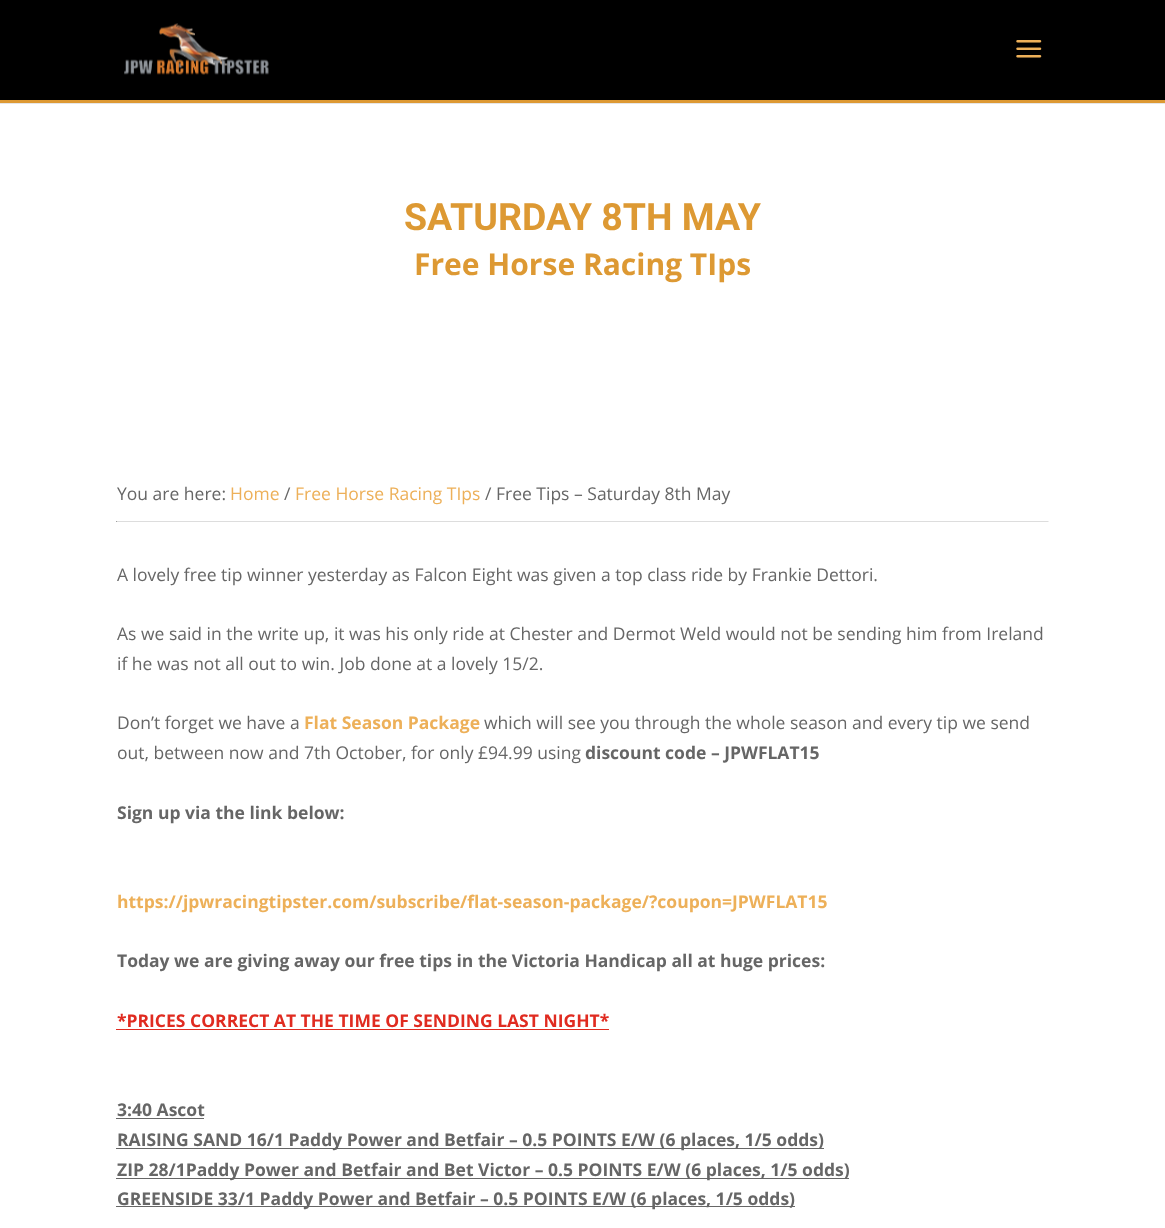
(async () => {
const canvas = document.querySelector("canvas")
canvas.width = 1165
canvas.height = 1228
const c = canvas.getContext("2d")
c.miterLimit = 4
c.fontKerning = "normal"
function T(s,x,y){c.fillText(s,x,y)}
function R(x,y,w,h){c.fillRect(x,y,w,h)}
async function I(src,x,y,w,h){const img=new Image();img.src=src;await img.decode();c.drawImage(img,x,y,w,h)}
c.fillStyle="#fff"
R(0,0,1165,1228)
c.fillStyle="#e6e6e6"
R(0,103,1165,1)
c.fillStyle="#000"
R(0,0,1165,100)
c.fillStyle="#d93"
R(0,100,1165,3)
await I("1.png",124,23,145,52)
await I("2.png",1016,40,26,18)
c.font="bold 37.5px Roboto"
T("SATURDAY 8TH MAY",404,230)
c.font="bold 30px Open Sans"
T("Free Horse Racing TIps",414,275)
c.font="17.5px Open Sans"
c.fillStyle="#666"
T("You are here:",117,500)
c.fillStyle="#edb059"
T("Home",230,500)
c.fillStyle="#666"
T("/",284,500)
c.fillStyle="#edb059"
T("Free Horse Racing TIps",295,500)
c.fillStyle="#666"
T("/ Free Tips – Saturday 8th May",485,500)
c.fillStyle="#ddd"
R(116,521,933,1)
c.fillStyle="#eee"
R(1048,521,1,1)
c.fillStyle="#9f9f9f"
R(116,521,1,1)
c.fillStyle="#666"
T("A lovely free tip winner yesterday as Falcon Eight was given a top class ride by Frankie Dettori.",117,581)
T("As we said in the write up, it was his only ride at Chester and Dermot Weld would not be sending him from Ireland",117,640)
T("if he was not all out to win. Job done at a lovely 15/2.",117,670)
T("Don’t forget we have a",117,729)
c.font="bold 17.5px Open Sans"
c.fillStyle="#edb059"
T("Flat Season Package",304,729)
c.font="17.5px Open Sans"
c.fillStyle="#666"
T("which will see you through the whole season and every tip we send",484,729)
T("out, between now and 7th October, for only £94.99 using",117,759)
c.font="bold 17.5px Open Sans"
T("discount code – JPWFLAT15",585,759)
T("Sign up via the link below:",117,819)
c.fillStyle="#edb059"
T("https://jpwracingtipster.com/subscribe/flat-season-package/?coupon=JPWFLAT15",117,908)
c.fillStyle="#666"
T("Today we are giving away our free tips in the Victoria Handicap all at huge prices:",117,967)
c.fillStyle="#e02b20"
T("*PRICES CORRECT AT THE TIME OF SENDING LAST NIGHT*",117,1027)
R(116,1029,493,1)
c.fillStyle="#666"
T("3:40 Ascot",117,1116)
R(116,1118,88,1)
R(116,1148,708,1)
T("RAISING SAND 16/1 Paddy Power and Betfair – 0.5 POINTS E/W (6 places, 1/5 odds)",117,1146)
R(116,1178,733,1)
T("ZIP 28/1Paddy Power and Betfair and Bet Victor – 0.5 POINTS E/W (6 places, 1/5 odds)",117,1176)
R(116,1206,679,1)
T("GREENSIDE 33/1 Paddy Power and Betfair – 0.5 POINTS E/W (6 places, 1/5 odds)",117,1205)
})()
